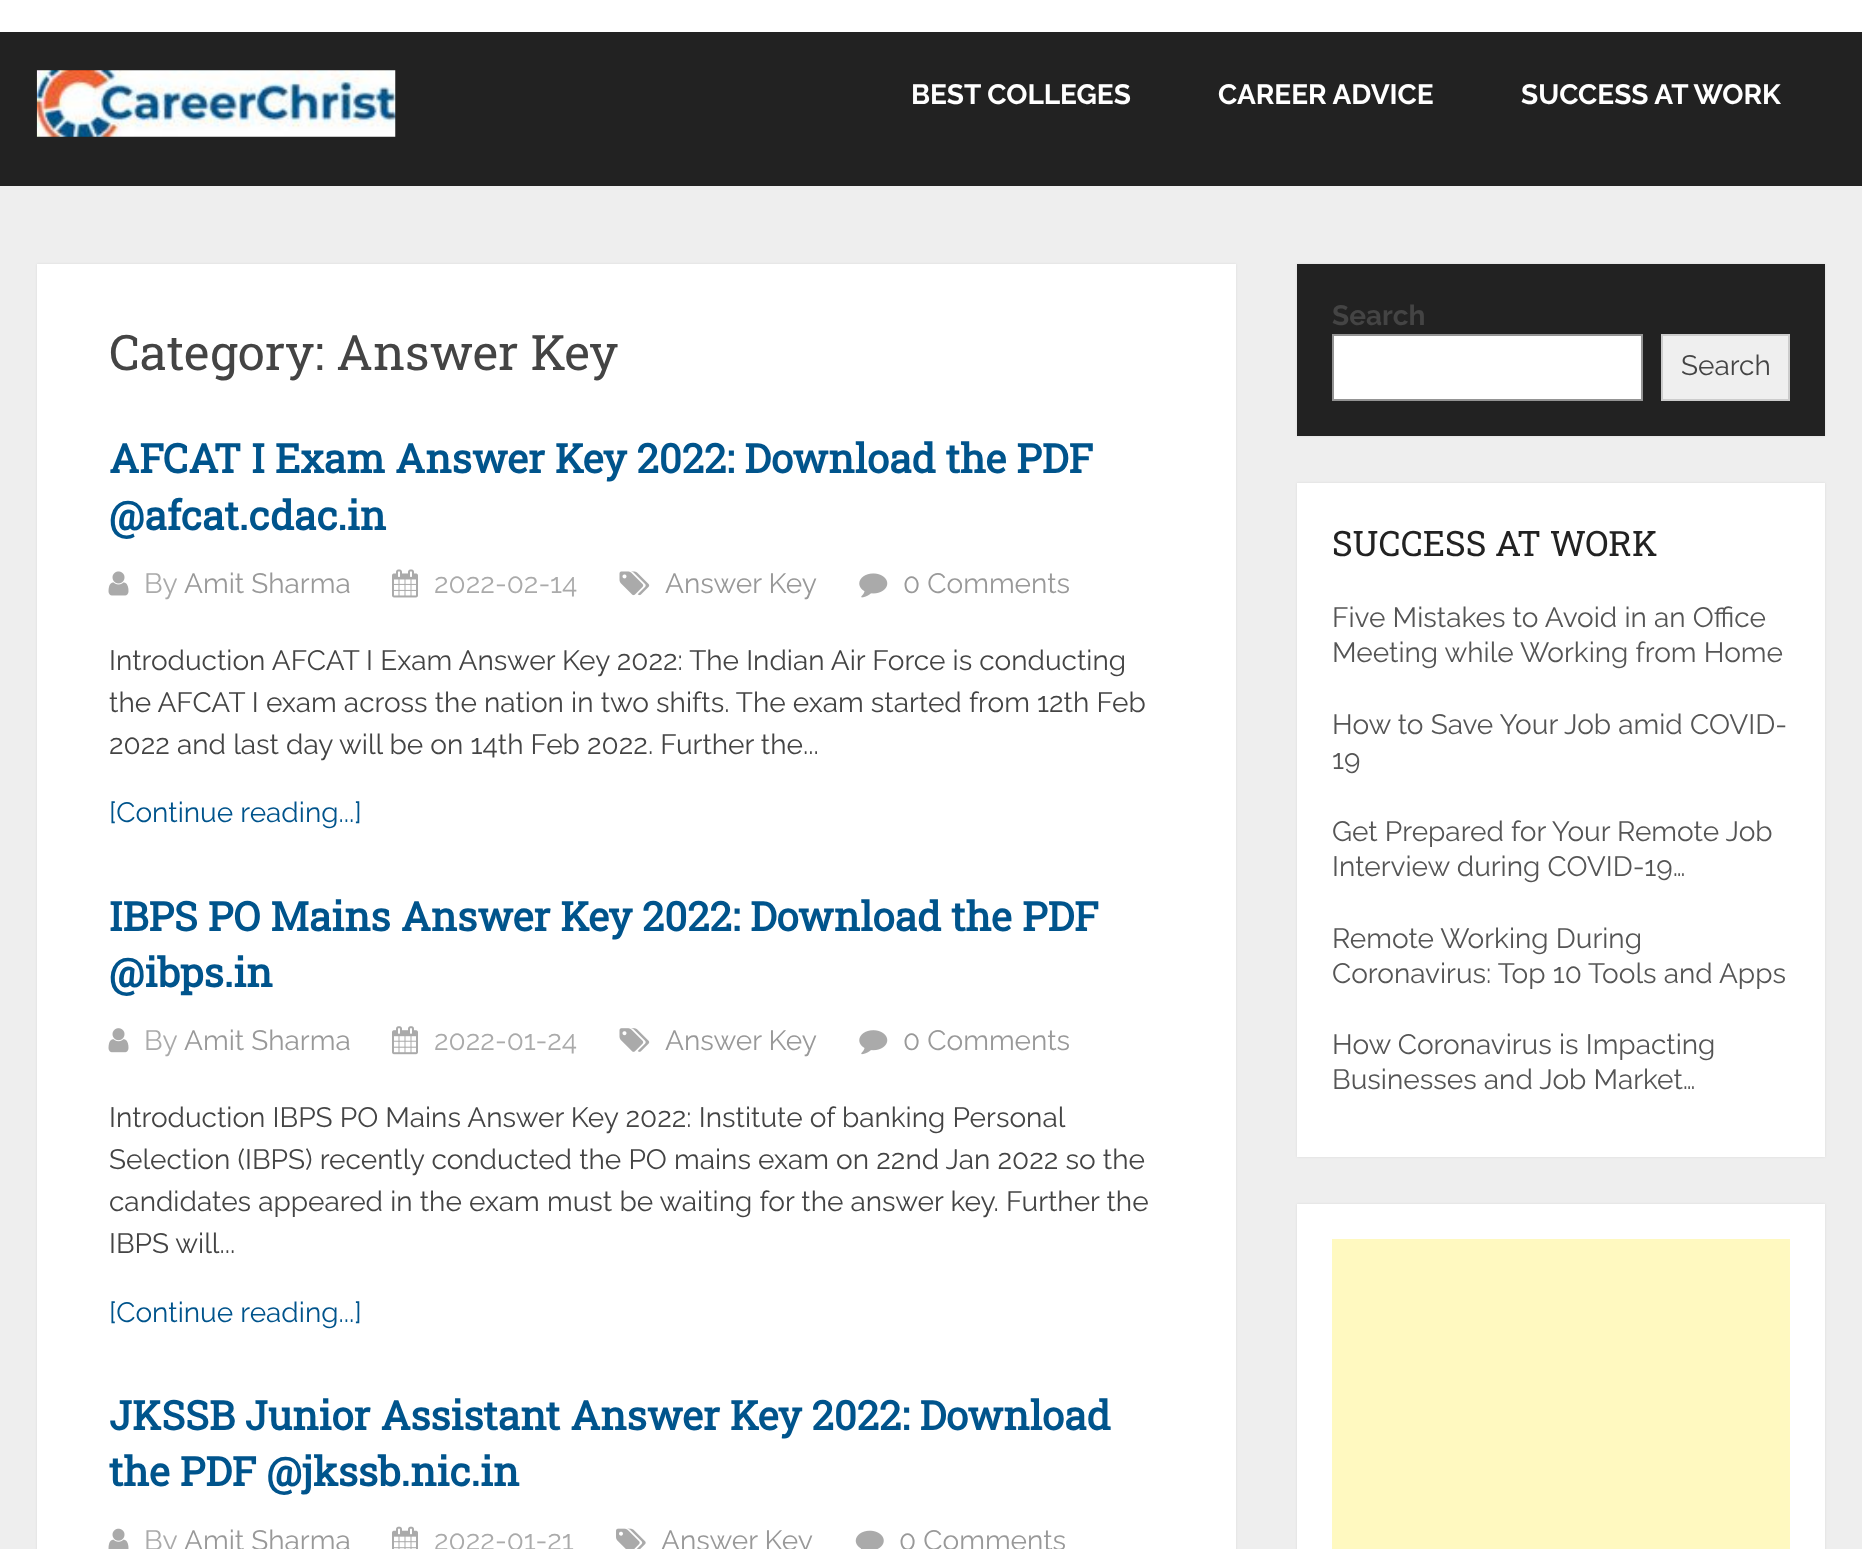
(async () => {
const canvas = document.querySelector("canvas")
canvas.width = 1862
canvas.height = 1549
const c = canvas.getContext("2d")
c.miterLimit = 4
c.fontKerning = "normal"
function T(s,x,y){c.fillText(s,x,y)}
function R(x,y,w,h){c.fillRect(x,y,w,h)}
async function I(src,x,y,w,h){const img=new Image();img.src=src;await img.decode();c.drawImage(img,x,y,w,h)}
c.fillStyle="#eee"
R(0,0,1862,1549)
c.fillStyle="#fff"
R(0,0,1862,32)
c.fillStyle="#222"
R(0,32,1862,154)
await I("1.png",36,70,360,67)
c.font="bold 28px Raleway"
c.fillStyle="#fff"
T("BEST COLLEGES",911,104)
T("CAREER ADVICE",1218,104)
T("SUCCESS AT WORK",1521,104)
c.fillStyle="#3232321a"
c.filter="blur(1px)"
c.beginPath()
c.rect(37,264,1199,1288)
c.fill()
c.filter="none"
c.fillStyle="#fff"
R(37,264,1199,1285)
c.font="49px Roboto Slab"
c.fillStyle="#444"
T("Category: Answer Key",109,370)
c.font="bold 40.25px Roboto Slab"
c.fillStyle="#00548c"
T("AFCAT I Exam Answer Key 2022: Download the PDF",109,473)
T("@afcat.cdac.in",109,530)
await I("2.png",108,571,21,25)
c.font="28px Raleway"
c.fillStyle="#aaa"
T("By",144,593)
c.fillStyle="#999"
T("Amit Sharma",184,593)
await I("3.png",392,569,26,29)
c.fillStyle="#aaa"
T("2022-02-14",434,593)
await I("4.png",619,571,31,25)
c.fillStyle="#999"
T("Answer Key",665,593)
await I("5.png",859,573,29,25)
T("0 Comments",903,593)
c.fillStyle="#444"
T("Introduction AFCAT I Exam Answer Key 2022: The Indian Air Force is conducting",109,670)
T("the AFCAT I exam across the nation in two shifts. The exam started from 12th Feb",109,712)
T("2022 and last day will be on 14th Feb 2022. Further the...",109,754)
c.fillStyle="#00548c"
T("[Continue reading...]",109,822)
c.font="bold 40.25px Roboto Slab"
T("IBPS PO Mains Answer Key 2022: Download the PDF",109,931)
T("@ibps.in",109,987)
await I("6.png",108,1028,21,25)
c.font="28px Raleway"
c.fillStyle="#aaa"
T("By",144,1050)
c.fillStyle="#999"
T("Amit Sharma",184,1050)
await I("7.png",392,1026,26,29)
c.fillStyle="#aaa"
T("2022-01-24",434,1050)
await I("8.png",619,1028,31,24)
c.fillStyle="#999"
T("Answer Key",665,1050)
await I("9.png",859,1030,29,25)
T("0 Comments",903,1050)
c.fillStyle="#444"
T("Introduction IBPS PO Mains Answer Key 2022: Institute of banking Personal",109,1127)
T("Selection (IBPS) recently conducted the PO mains exam on 22nd Jan 2022 so the",109,1169)
T("candidates appeared in the exam must be waiting for the answer key. Further the",109,1211)
T("IBPS will...",109,1253)
c.fillStyle="#00548c"
T("[Continue reading...]",109,1322)
c.font="bold 40.25px Roboto Slab"
T("JKSSB Junior Assistant Answer Key 2022: Download",109,1430)
T("the PDF @jkssb.nic.in",109,1486)
await I("10.png",108,1528,21,21)
c.font="28px Raleway"
c.fillStyle="#aaa"
T("By",144,1550)
c.fillStyle="#999"
T("Amit Sharma",184,1550)
await I("11.png",392,1526,26,23)
c.fillStyle="#aaa"
T("2022-01-21",434,1550)
await I("12.png",616,1528,30,21)
c.fillStyle="#999"
T("Answer Key",661,1550)
await I("13.png",855,1530,29,19)
T("0 Comments",899,1550)
c.fillStyle="#3232321a"
c.filter="blur(1px)"
c.beginPath()
c.rect(1297,264,528,172)
c.fill()
c.filter="none"
c.fillStyle="#222"
R(1297,264,528,172)
c.font="bold 28px Raleway"
c.fillStyle="#444"
T("Search",1332,325)
c.fillStyle="#fff"
c.beginPath()
c.rect(1333,335,309,65)
c.fill()
c.strokeStyle="#949494"
c.lineWidth=2
c.stroke()
c.fillStyle="#efefef"
c.beginPath()
c.rect(1662,335,127,65)
c.fill()
c.strokeStyle="#ccc"
c.stroke()
c.font="28px Raleway"
c.fillStyle="#444"
T("Search",1681,375)
c.fillStyle="#3232321a"
c.filter="blur(1px)"
c.beginPath()
c.rect(1297,483,528,674)
c.fill()
c.filter="none"
c.fillStyle="#fff"
R(1297,483,528,674)
c.font="35px Roboto Slab"
c.fillStyle="#222"
T("SUCCESS AT WORK",1332,556)
c.font="28px Raleway"
c.fillStyle="#555"
T("Five Mistakes to Avoid in an Office",1332,627)
T("Meeting while Working from Home",1332,662)
T("How to Save Your Job amid COVID-",1332,734)
T("19",1332,769)
T("Get Prepared for Your Remote Job",1332,841)
T("Interview during COVID-19…",1332,876)
T("Remote Working During",1332,948)
T("Coronavirus: Top 10 Tools and Apps",1332,983)
T("How Coronavirus is Impacting",1332,1054)
T("Businesses and Job Market…",1332,1089)
c.fillStyle="#3232321a"
c.filter="blur(1px)"
c.beginPath()
c.rect(1297,1204,528,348)
c.fill()
c.filter="none"
c.fillStyle="#fff"
R(1297,1204,528,345)
c.fillStyle="#fff9c0"
R(1332,1239,458,310)
})()
